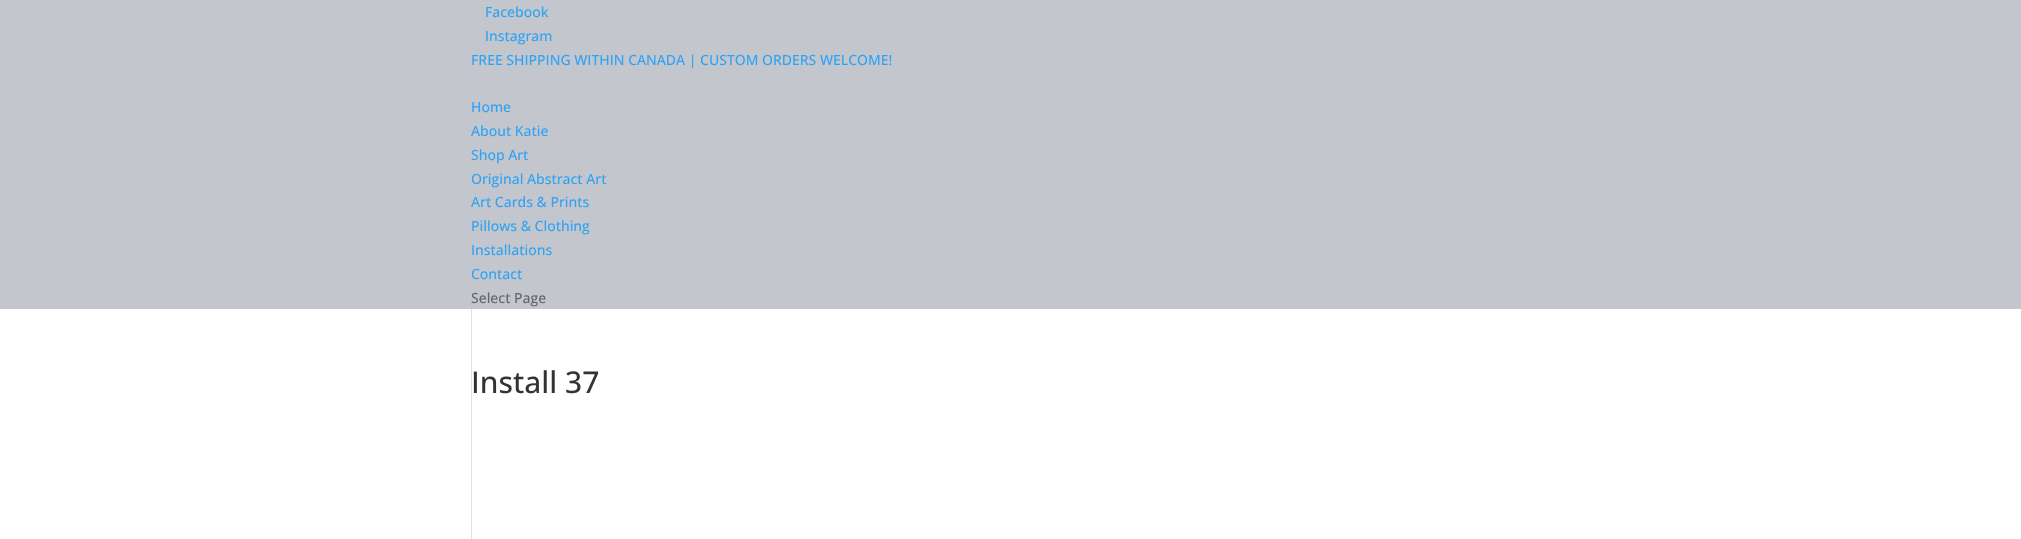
(async () => {
const canvas = document.querySelector("canvas")
canvas.width = 2021
canvas.height = 539
const c = canvas.getContext("2d")
c.miterLimit = 4
c.fontKerning = "normal"
function T(s,x,y){c.fillText(s,x,y)}
function R(x,y,w,h){c.fillRect(x,y,w,h)}
c.fillStyle="#c4c6ce"
R(0,0,2021,539)
c.font="500 14px Open Sans"
c.fillStyle="#2ea3f2"
T("Facebook",485,17)
T("Instagram",485,41)
T("FREE SHIPPING WITHIN CANADA | CUSTOM ORDERS WELCOME!",471,65)
T("Home",471,112)
T("About Katie",471,136)
T("Shop Art",471,160)
T("Original Abstract Art",471,184)
T("Art Cards & Prints",471,207)
T("Pillows & Clothing",471,231)
T("Installations",471,255)
T("Contact",471,279)
c.fillStyle="#666"
T("Select Page",471,303)
c.fillStyle="#fff"
R(0,309,2021,230)
c.fillStyle="#e2e2e2"
R(471,309,1,230)
c.font="500 30px Open Sans"
c.fillStyle="#333"
T("Install 37",471,393)
})()
